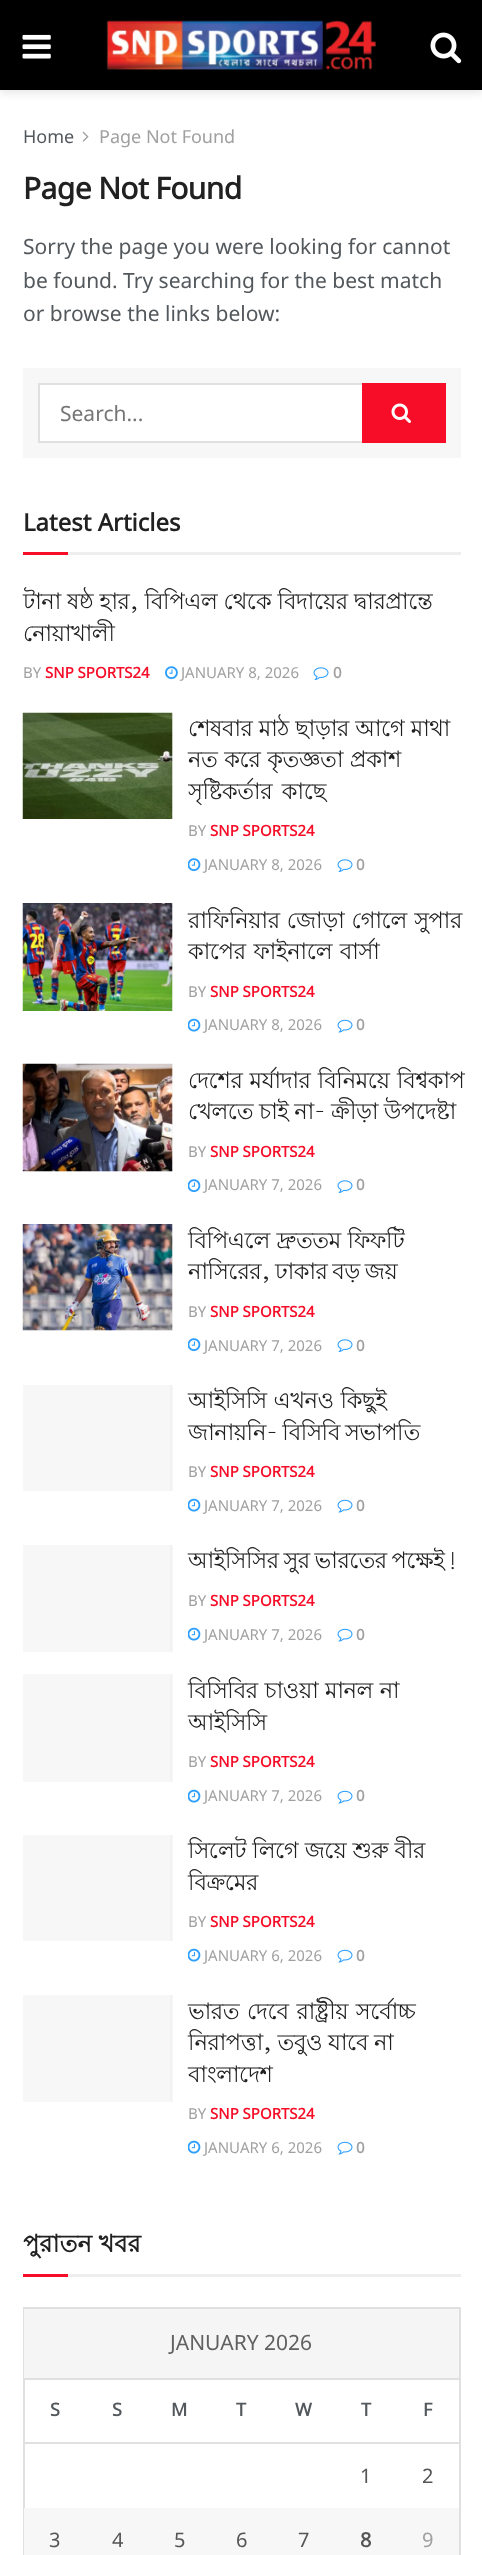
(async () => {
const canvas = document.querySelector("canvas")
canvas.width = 482
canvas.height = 2555
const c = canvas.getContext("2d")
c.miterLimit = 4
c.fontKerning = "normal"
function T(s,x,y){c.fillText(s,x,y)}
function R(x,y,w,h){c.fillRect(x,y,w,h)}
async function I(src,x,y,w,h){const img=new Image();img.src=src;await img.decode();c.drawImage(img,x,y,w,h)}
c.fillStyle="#fff"
R(0,0,482,2555)
c.fillStyle="#0000001a"
c.filter="blur(4.5px)"
c.beginPath()
c.rect(0,3,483,90)
c.fill()
c.filter="none"
c.fillStyle="#000"
R(0,0,482,90)
await I("1.png",22,34,29,25)
await I("2.png",106,20,270,50)
await I("3.png",430,32,32,32)
c.font="18px Noto Sans"
c.fillStyle="#53585c"
T("Home",23,143)
await I("4.png",82,131,7,11)
c.fillStyle="#a0a0a0"
T("Page Not Found",99,143)
c.letterSpacing="-0.6px"
c.font="bold 30px Noto Sans"
c.fillStyle="#212121"
T("Page Not Found",23,199)
c.letterSpacing="0px"
c.font="21px Noto Sans"
c.fillStyle="#53585c"
T("Sorry the page you were looking for cannot",23,254)
T("be found. Try searching for the best match",23,288)
T("or browse the links below:",23,321)
c.fillStyle="#f7f7f7"
R(23,368,438,90)
c.fillStyle="#fff"
R(40,385,322,56)
c.strokeStyle="#e0e0e0"
c.lineWidth=2
c.strokeRect(39,384,406,58)
c.fillStyle="#757575"
T("Search...",60,421)
c.fillStyle="#f70d28"
R(362,383,84,60)
await I("5.png",391,403,20,20)
c.fillStyle="#eee"
R(68,552,393,3)
c.font="bold 24px Noto Sans"
c.fillStyle="#212121"
T("Latest Articles",23,531)
c.fillStyle="#f70d28"
R(23,552,45,3)
c.letterSpacing="-0.45px"
c.wordSpacing="0.5px"
c.font="22.5px Lohit Bengali"
c.fillStyle="#212121"
T("টানা ষষ্ঠ হার, বিপিএল থেকে বিদায়ের দ্বারপ্রান্তে",23,609)
c.wordSpacing="0px"
T("নোয়াখালী",23,641)
c.letterSpacing="0px"
c.font="15px Noto Sans"
c.fillStyle="#a0a0a0"
T("BY",23,678)
c.font="bold 15px Noto Sans"
c.fillStyle="#f70d28"
T("SNP SPORTS24",45,678)
await I("6.png",165,666,13,14)
c.font="15px Noto Sans"
c.fillStyle="#a0a0a0"
T("JANUARY 8, 2026",181,678)
await I("7.png",313,667,16,14)
c.font="bold 15px Noto Sans"
T("0",333,678)
c.fillStyle="#f7f7f7"
R(172,713,1,106)
await I("8.png",22,712,151,107)
c.save()
c.beginPath()
c.rect(188,713,273,168)
c.clip()
c.letterSpacing="-0.45px"
c.wordSpacing="0.5px"
c.font="22.5px Lohit Bengali"
c.fillStyle="#212121"
T("শেষবার মাঠ ছাড়ার আগে মাথা",188,736)
c.restore()
c.letterSpacing="-0.45px"
c.wordSpacing="1px"
c.font="22.5px Lohit Bengali"
c.fillStyle="#212121"
T("নত করে কৃতজ্ঞতা প্রকাশ",188,767)
c.save()
c.beginPath()
c.rect(188,713,273,168)
c.clip()
c.wordSpacing="4px"
T("সৃষ্টিকর্তার কাছে",188,799)
c.restore()
c.letterSpacing="0px"
c.wordSpacing="0px"
c.font="15px Noto Sans"
c.fillStyle="#a0a0a0"
T("BY",188,836)
c.font="bold 15px Noto Sans"
c.fillStyle="#f70d28"
T("SNP SPORTS24",210,836)
await I("9.png",188,858,13,14)
c.font="15px Noto Sans"
c.fillStyle="#a0a0a0"
T("JANUARY 8, 2026",204,870)
await I("7.png",337,859,16,14)
c.font="bold 15px Noto Sans"
T("0",356,870)
c.fillStyle="#f7f7f7"
R(172,903,1,108)
await I("10.png",22,903,151,108)
c.letterSpacing="-0.45px"
c.wordSpacing="1.5px"
c.font="22.5px Lohit Bengali"
c.fillStyle="#212121"
T("রাফিনিয়ার জোড়া গোলে সুপার",188,928)
c.wordSpacing="2px"
T("কাপের ফাইনালে বার্সা",188,959)
c.letterSpacing="0px"
c.wordSpacing="0px"
c.font="15px Noto Sans"
c.fillStyle="#a0a0a0"
T("BY",188,997)
c.font="bold 15px Noto Sans"
c.fillStyle="#f70d28"
T("SNP SPORTS24",210,997)
await I("11.png",188,1018,13,14)
c.font="15px Noto Sans"
c.fillStyle="#a0a0a0"
T("JANUARY 8, 2026",204,1030)
await I("12.png",337,1019,16,14)
c.font="bold 15px Noto Sans"
T("0",356,1030)
c.fillStyle="#f7f7f7"
R(23,1064,150,108)
await I("13.png",22,1063,151,109)
c.letterSpacing="-0.45px"
c.wordSpacing="1.5px"
c.font="22.5px Lohit Bengali"
c.fillStyle="#212121"
T("দেশের মর্যাদার বিনিময়ে বিশ্বকাপ",188,1088)
c.save()
c.beginPath()
c.rect(188,1064,273,138)
c.clip()
c.wordSpacing="0px"
T("খেলতে চাই না- ক্রীড়া উপদেষ্টা",188,1119)
c.restore()
c.letterSpacing="0px"
c.wordSpacing="0px"
c.font="15px Noto Sans"
c.fillStyle="#a0a0a0"
T("BY",188,1157)
c.font="bold 15px Noto Sans"
c.fillStyle="#f70d28"
T("SNP SPORTS24",210,1157)
await I("9.png",188,1179,13,14)
c.font="15px Noto Sans"
c.fillStyle="#a0a0a0"
T("JANUARY 7, 2026",204,1190)
await I("7.png",337,1180,16,14)
c.font="bold 15px Noto Sans"
T("0",356,1190)
c.fillStyle="#f7f7f7"
R(23,1224,150,107)
await I("14.png",22,1224,151,107)
c.letterSpacing="-0.45px"
c.wordSpacing="1px"
c.font="22.5px Lohit Bengali"
c.fillStyle="#212121"
T("বিপিএলে দ্রুততম ফিফটি",188,1248)
c.wordSpacing="-1px"
T("নাসিরের, ঢাকার বড় জয়",188,1279)
c.letterSpacing="0px"
c.wordSpacing="0px"
c.font="15px Noto Sans"
c.fillStyle="#a0a0a0"
T("BY",188,1317)
c.font="bold 15px Noto Sans"
c.fillStyle="#f70d28"
T("SNP SPORTS24",210,1317)
await I("9.png",188,1338,13,14)
c.font="15px Noto Sans"
c.fillStyle="#a0a0a0"
T("JANUARY 7, 2026",204,1351)
await I("7.png",337,1339,16,14)
c.font="bold 15px Noto Sans"
T("0",356,1351)
c.fillStyle="#f7f7f7"
R(23,1385,150,106)
c.fillStyle="#f2f2f2"
R(170,1385,2,106)
c.letterSpacing="-0.45px"
c.wordSpacing="1px"
c.font="22.5px Lohit Bengali"
c.fillStyle="#212121"
T("আইসিসি এখনও কিছুই",188,1408)
c.wordSpacing="-1px"
T("জানায়নি- বিসিবি সভাপতি",188,1440)
c.letterSpacing="0px"
c.wordSpacing="0px"
c.font="15px Noto Sans"
c.fillStyle="#a0a0a0"
T("BY",188,1477)
c.font="bold 15px Noto Sans"
c.fillStyle="#f70d28"
T("SNP SPORTS24",210,1477)
await I("11.png",188,1498,13,14)
c.font="15px Noto Sans"
c.fillStyle="#a0a0a0"
T("JANUARY 7, 2026",204,1511)
await I("12.png",337,1499,16,14)
c.font="bold 15px Noto Sans"
T("0",356,1511)
c.fillStyle="#f7f7f7"
R(23,1545,150,107)
c.fillStyle="#f2f2f2"
R(170,1545,2,106)
c.letterSpacing="-0.45px"
c.wordSpacing="-1px"
c.font="22.5px Lohit Bengali"
c.fillStyle="#212121"
T("আইসিসির সুর ভারতের পক্ষেই!",188,1568)
c.letterSpacing="0px"
c.wordSpacing="0px"
c.font="15px Noto Sans"
c.fillStyle="#a0a0a0"
T("BY",188,1606)
c.font="bold 15px Noto Sans"
c.fillStyle="#f70d28"
T("SNP SPORTS24",210,1606)
await I("11.png",188,1627,13,14)
c.font="15px Noto Sans"
c.fillStyle="#a0a0a0"
T("JANUARY 7, 2026",204,1640)
await I("12.png",337,1628,16,14)
c.font="bold 15px Noto Sans"
T("0",356,1640)
c.fillStyle="#f7f7f7"
R(23,1674,150,108)
c.fillStyle="#f2f2f2"
R(170,1674,2,108)
c.letterSpacing="-0.45px"
c.wordSpacing="1px"
c.font="22.5px Lohit Bengali"
c.fillStyle="#212121"
T("বিসিবির চাওয়া মানল না",188,1698)
c.wordSpacing="0px"
T("আইসিসি",188,1730)
c.letterSpacing="0px"
c.font="15px Noto Sans"
c.fillStyle="#a0a0a0"
T("BY",188,1767)
c.font="bold 15px Noto Sans"
c.fillStyle="#f70d28"
T("SNP SPORTS24",210,1767)
await I("11.png",188,1789,13,14)
c.font="15px Noto Sans"
c.fillStyle="#a0a0a0"
T("JANUARY 7, 2026",204,1801)
await I("12.png",337,1790,16,14)
c.font="bold 15px Noto Sans"
T("0",356,1801)
c.fillStyle="#f7f7f7"
R(23,1835,150,106)
c.fillStyle="#f2f2f2"
R(170,1835,2,106)
c.letterSpacing="-0.45px"
c.wordSpacing="0.5px"
c.font="22.5px Lohit Bengali"
c.fillStyle="#212121"
T("সিলেট লিগে জয়ে শুরু বীর",188,1858)
c.wordSpacing="0px"
T("বিক্রমের",188,1890)
c.letterSpacing="0px"
c.font="15px Noto Sans"
c.fillStyle="#a0a0a0"
T("BY",188,1927)
c.font="bold 15px Noto Sans"
c.fillStyle="#f70d28"
T("SNP SPORTS24",210,1927)
await I("11.png",188,1948,13,14)
c.font="15px Noto Sans"
c.fillStyle="#a0a0a0"
T("JANUARY 6, 2026",204,1961)
await I("12.png",337,1949,16,14)
c.font="bold 15px Noto Sans"
T("0",356,1961)
c.fillStyle="#f7f7f7"
R(23,1995,150,107)
c.fillStyle="#f2f2f2"
R(170,1995,2,106)
c.letterSpacing="-0.45px"
c.wordSpacing="2px"
c.font="22.5px Lohit Bengali"
c.fillStyle="#212121"
T("ভারত দেবে রাষ্ট্রীয় সর্বোচ্চ",188,2019)
c.wordSpacing="0px"
T("নিরাপত্তা, তবুও যাবে না",188,2050)
T("বাংলাদেশ",188,2082)
c.letterSpacing="0px"
c.font="15px Noto Sans"
c.fillStyle="#a0a0a0"
T("BY",188,2119)
c.font="bold 15px Noto Sans"
c.fillStyle="#f70d28"
T("SNP SPORTS24",210,2119)
await I("11.png",188,2140,13,14)
c.font="15px Noto Sans"
c.fillStyle="#a0a0a0"
T("JANUARY 6, 2026",204,2153)
await I("12.png",337,2141,16,14)
c.font="bold 15px Noto Sans"
T("0",356,2153)
c.fillStyle="#eee"
R(68,2274,393,3)
c.font="bold 24px Lohit Bengali"
c.fillStyle="#212121"
T("পুরাতন খবর",23,2252)
c.fillStyle="#f70d28"
R(23,2274,45,3)
c.strokeRect(24,2308,436,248)
c.fillStyle="#f5f5f5"
R(24,2309,435,69)
c.fillStyle="#e0e0e0"
R(24,2378,435,2)
c.font="21px Noto Sans"
c.fillStyle="#616161"
T("JANUARY 2026",170,2350)
c.fillStyle="#e0e0e0"
R(24,2442,437,2)
c.font="bold 18px Noto Sans"
c.fillStyle="#53585c"
T("S",50,2416)
T("S",112,2416)
T("M",171,2416)
T("T",236,2416)
T("W",295,2416)
T("T",361,2416)
T("F",423,2416)
c.font="20px Noto Sans"
c.fillStyle="#555"
T("1",360,2483)
T("2",422,2483)
c.fillStyle="#f7f7f7"
R(24,2508,435,47)
c.fillStyle="#555"
T("3",49,2547)
T("4",112,2547)
T("5",174,2547)
T("6",236,2547)
T("7",298,2547)
c.font="bold 20px Noto Sans"
T("8",360,2547)
c.font="20px Noto Sans"
c.fillStyle="#a0a0a0"
T("9",422,2547)
})()
